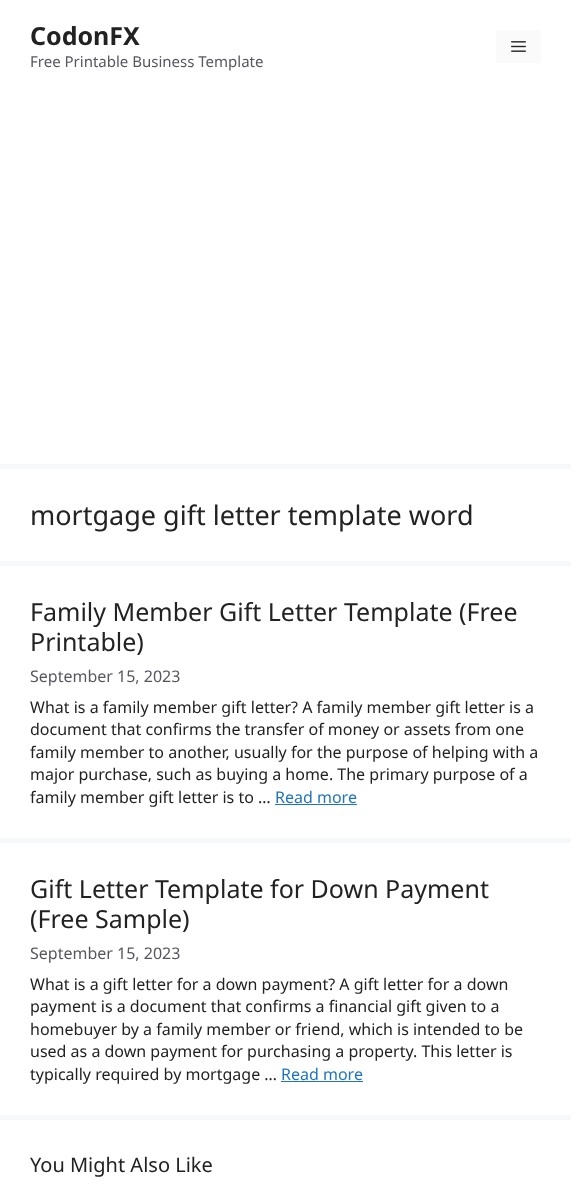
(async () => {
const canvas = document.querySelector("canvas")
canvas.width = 571
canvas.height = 1189
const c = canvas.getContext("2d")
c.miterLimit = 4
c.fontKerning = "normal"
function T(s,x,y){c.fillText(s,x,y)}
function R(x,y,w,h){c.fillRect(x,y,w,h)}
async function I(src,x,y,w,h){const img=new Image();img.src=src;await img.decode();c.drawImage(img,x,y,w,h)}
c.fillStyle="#f7f8f9"
R(0,0,571,1189)
c.fillStyle="#fff"
R(0,0,571,464)
c.font="bold 25px Noto Sans"
c.fillStyle="#222"
T("CodonFX",30,45)
c.font="15px Noto Sans"
c.fillStyle="#575760"
T("Free Printable Business Template",30,67)
c.fillStyle="#fafafa"
R(496,30,45,33)
await I("1.png",511,41,15,11)
c.fillStyle="#fff"
R(0,469,571,92)
c.font="27px Noto Sans"
c.fillStyle="#222"
T("mortgage gift letter template word",30,525)
c.fillStyle="#fff"
R(0,566,571,272)
c.font="25px Noto Sans"
c.fillStyle="#222"
T("Family Member Gift Letter Template (Free",30,621)
T("Printable)",30,651)
c.font="16px Noto Sans"
c.fillStyle="#575760"
T("September 15, 2023",30,682)
c.fillStyle="#222"
T("What is a family member gift letter? A family member gift letter is a",30,713)
T("document that confirms the transfer of money or assets from one",30,735)
T("family member to another, usually for the purpose of helping with a",30,758)
T("major purchase, such as buying a home. The primary purpose of a",30,780)
T("family member gift letter is to …",30,803)
c.fillStyle="#1e73be"
T("Read more",275,803)
R(275,804,82,1)
c.fillStyle="#fff"
R(0,843,571,272)
c.font="25px Noto Sans"
c.fillStyle="#222"
T("Gift Letter Template for Down Payment",30,898)
T("(Free Sample)",30,928)
c.font="16px Noto Sans"
c.fillStyle="#575760"
T("September 15, 2023",30,959)
c.fillStyle="#222"
T("What is a gift letter for a down payment? A gift letter for a down",30,990)
T("payment is a document that confirms a financial gift given to a",30,1012)
T("homebuyer by a family member or friend, which is intended to be",30,1035)
T("used as a down payment for purchasing a property. This letter is",30,1057)
T("typically required by mortgage …",30,1080)
c.fillStyle="#1e73be"
T("Read more",281,1080)
R(281,1081,82,1)
c.fillStyle="#fff"
R(0,1120,571,69)
c.font="20px Noto Sans"
c.fillStyle="#222"
T("You Might Also Like",30,1172)
})()
